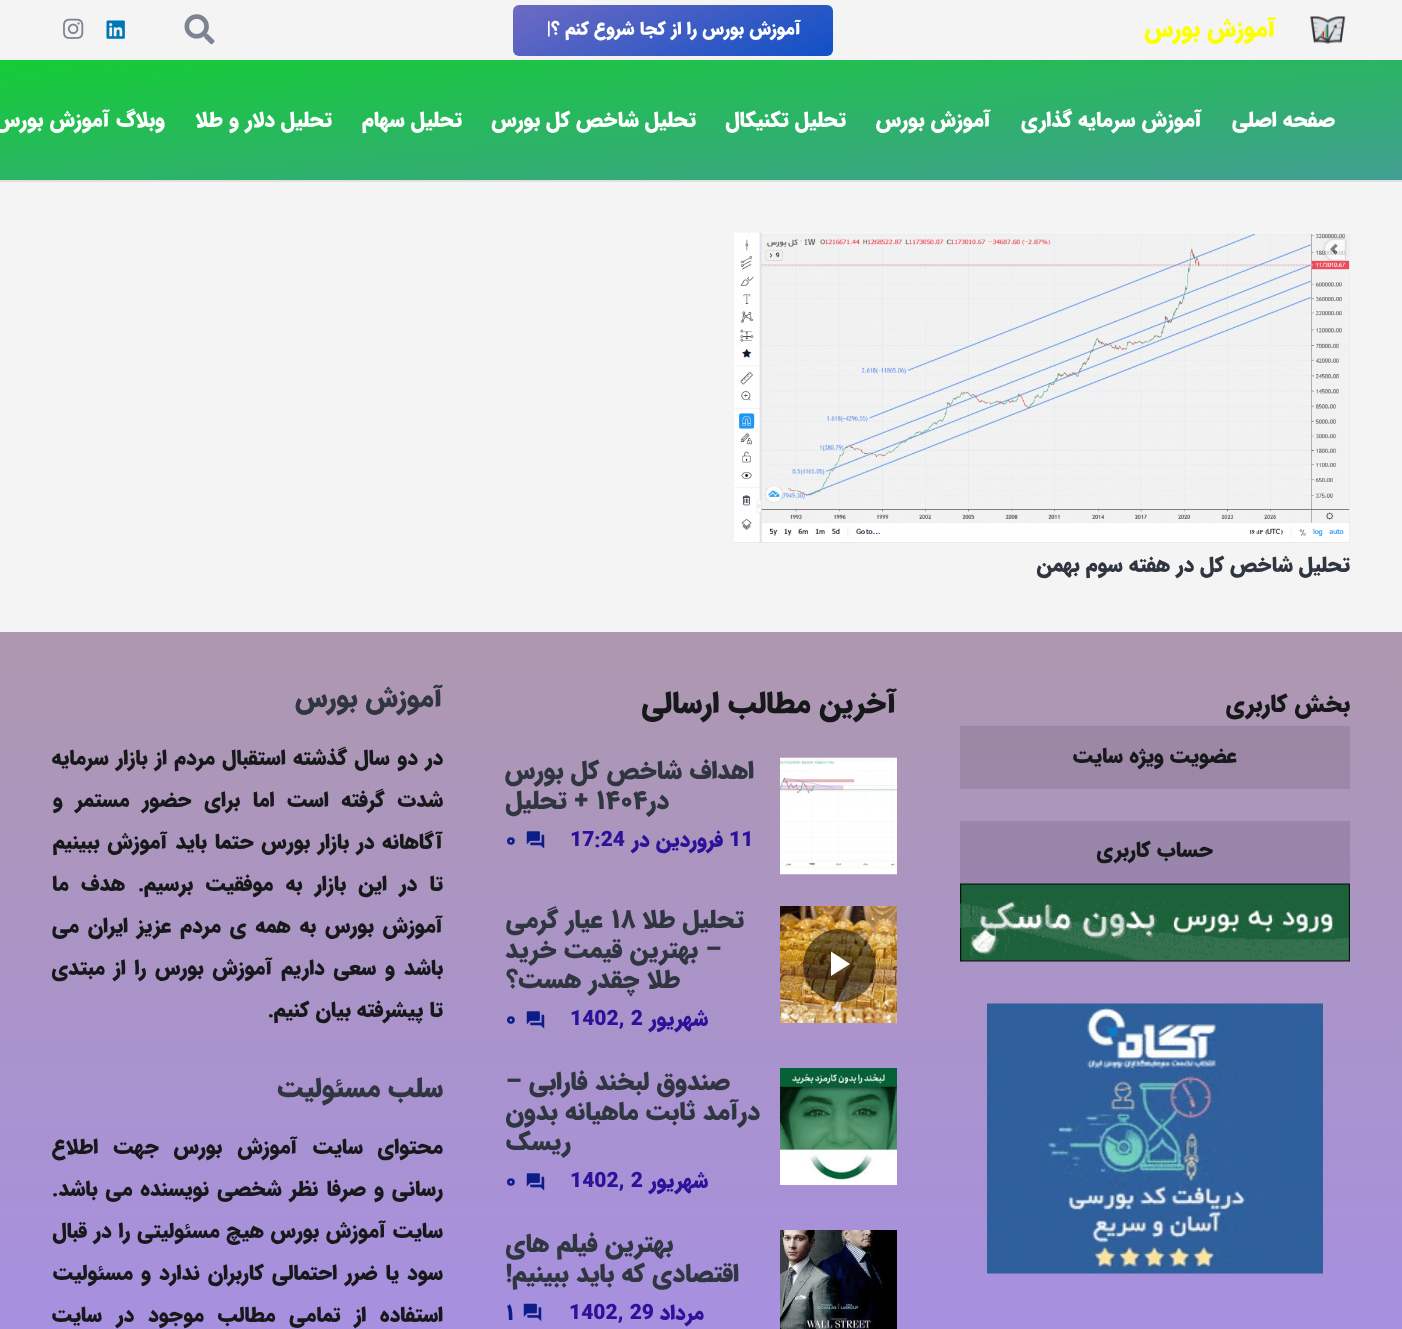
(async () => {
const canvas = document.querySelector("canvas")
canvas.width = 1402
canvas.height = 1329
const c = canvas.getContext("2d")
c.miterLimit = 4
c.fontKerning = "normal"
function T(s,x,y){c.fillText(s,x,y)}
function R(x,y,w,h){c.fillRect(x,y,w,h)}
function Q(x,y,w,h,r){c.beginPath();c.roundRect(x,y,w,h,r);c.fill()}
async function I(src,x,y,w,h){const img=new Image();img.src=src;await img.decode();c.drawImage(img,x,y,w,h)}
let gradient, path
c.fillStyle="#f4f4f5"
R(0,0,1402,1329)
await I("1.png",1309,16,37,28)
c.direction="rtl"
c.font="900 24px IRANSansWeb"
c.fillStyle="#fbff00"
T("آموزش بورس",1276,36)
gradient = c.createLinearGradient(711,112,634,-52)
gradient.addColorStop(0,"#1050c7")
gradient.addColorStop(1,"#6f6ac2")
c.fillStyle = gradient
Q(513,5,320,51,6)
c.font="900 18px IRANSansWeb"
c.fillStyle="#fff"
T("آموزش بورس را از کجا شروع کنم ؟|",801,34)
await I("2.png",184,14,31,31)
await I("3.png",106,20,19,19)
await I("4.png",63,18,21,21)
c.fillStyle="#e0e0e1"
path = new Path2D("M0 180v2h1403v-120h-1v118z")
c.fill(path)
gradient = c.createLinearGradient(691,-.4,712,240)
gradient.addColorStop(0,"#14cc36")
gradient.addColorStop(1,"#419e92")
c.fillStyle = gradient
R(0,60,1402,120)
c.font="900 21px IRANSansWeb"
c.fillStyle="#fff"
T("صفحه اصلی",1335,126)
T("آموزش سرمایه گذاری",1202,126)
T("آموزش بورس",991,126)
T("تحلیل تکنیکال",846,126)
T("تحلیل شاخص کل بورس",696,126)
T("تحلیل سهام",462,126)
T("تحلیل دلار و طلا",332,126)
T("وبلاگ آموزش بورس",165,126)
await I("5.png",734,232,616,311)
c.fillStyle="#303640"
T("تحلیل شاخص کل در هفته سوم بهمن",1350,571)
gradient = c.createLinearGradient(701,631,701,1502)
gradient.addColorStop(0,"#ae98af")
gradient.addColorStop(1,"#a58eec")
c.fillStyle = gradient
R(0,632,1402,697)
gradient = c.createLinearGradient(701,631,701,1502)
gradient.addColorStop(0,"#9d899e")
gradient.addColorStop(1,"#9580d4")
c.fillStyle = gradient
R(960,726,390,63)
c.font="900 24px IRANSansWeb"
c.fillStyle="#16181a"
T("بخش کاربری",1350,711)
c.font="900 21px IRANSansWeb"
T("عضویت ویژه سایت",1237,762)
await I("6.png",960,883,390,79)
c.fillStyle="#0000001a"
R(960,821,390,63)
c.fillStyle="#16181a"
T("حساب کاربری",1213,856)
await I("7.png",987,1003,336,271)
c.font="900 30px IRANSansWeb"
T("آخرین مطالب ارسالی",897,712)
await I("8.png",780,757,117,118)
c.font="900 25.25px IRANSansWeb"
c.fillStyle="#303640"
T("اهداف شاخص کل بورس",754,778)
c.direction="ltr"
T("۱۴۰۴",596,808)
c.direction="rtl"
T("در",669,808)
T("+ تحلیل",588,808)
c.direction="ltr"
c.font="900 21px IRANSansWeb"
c.fillStyle="#2c1199"
T("11",729,846)
c.direction="rtl"
T("فروردین در",723,846)
c.direction="ltr"
T("17:24",570,846)
await I("9.png",526,831,19,18)
c.fillStyle="#0c1d8a"
T("۰",506,846)
await I("10.png",780,906,117,117)
c.fillStyle="#00000080"
c.beginPath()
c.arc(839.5,965.5,36.5,0,7)
c.fill()
c.fillStyle="#fff"
path = new Path2D("M831 951.5l19 12.5l-19 12z")
c.fill(path)
c.direction="rtl"
c.font="900 25.25px IRANSansWeb"
c.fillStyle="#303640"
T("تحلیل طلا",744,927)
c.direction="ltr"
T("۱۸",611,927)
c.direction="rtl"
T("عیار گرمی",603,927)
T("– بهترین قیمت خرید",721,957)
T("طلا چقدر هست؟",680,987)
c.font="900 21px IRANSansWeb"
c.fillStyle="#2c1199"
T("شهریور",708,1025)
c.direction="ltr"
T("1402, 2",570,1025)
await I("11.png",526,1011,19,18)
c.fillStyle="#0c1d8a"
T("۰",506,1025)
await I("12.png",780,1068,117,117)
c.direction="rtl"
c.font="900 25.25px IRANSansWeb"
c.fillStyle="#303640"
T("صندوق لبخند فارابی –",730,1089)
T("درآمد ثابت ماهیانه بدون",760,1119)
T("ریسک",571,1149)
c.font="900 21px IRANSansWeb"
c.fillStyle="#2c1199"
T("شهریور",708,1187)
c.direction="ltr"
T("1402, 2",570,1187)
await I("13.png",526,1173,19,18)
c.fillStyle="#0c1d8a"
T("۰",506,1187)
await I("14.png",780,1230,117,99)
c.direction="rtl"
c.font="900 25.25px IRANSansWeb"
c.fillStyle="#303640"
T("بهترین فیلم های",673,1251)
T("اقتصادی که باید ببینیم!",739,1281)
c.font="900 21px IRANSansWeb"
c.fillStyle="#2c1199"
T("مرداد",704,1319)
c.direction="ltr"
T("1402, 29",569,1319)
await I("15.png",523,1303,19,19)
c.fillStyle="#0c1d8a"
T("۱",506,1319)
c.direction="rtl"
c.font="900 27px IRANSansWeb"
c.fillStyle="#303640"
T("آموزش بورس",443,706)
c.wordSpacing="1.25px"
c.font="900 21px IRANSansWeb"
c.fillStyle="#16181a"
T("در دو سال گذشته استقبال مردم از بازار سرمایه",443,764)
c.wordSpacing="6.5px"
T("شدت گرفته است اما برای حضور مستمر و",443,806)
c.wordSpacing="1.5px"
T("آگاهانه در بازار بورس حتما باید آموزش ببینیم",443,848)
c.wordSpacing="6.25px"
T("تا در این بازار به موفقیت برسیم.",443,890)
T("هدف ما",125,890)
c.wordSpacing="2.75px"
T("آموزش بورس به همه ی مردم عزیز ایران می",443,932)
c.wordSpacing="2.5px"
T("باشد و سعی داریم آموزش بورس را از مبتدی",443,974)
c.wordSpacing="0px"
T("تا پیشرفته بیان کنیم.",443,1016)
c.font="900 27px IRANSansWeb"
c.fillStyle="#303640"
T("سلب مسئولیت",443,1096)
c.font="900 21px IRANSansWeb"
c.fillStyle="#16181a"
T("محتوای",443,1153)
c.wordSpacing="9px"
T("سایت آموزش بورس",363,1153)
T("جهت اطلاع",159,1153)
c.wordSpacing="1.75px"
T("رسانی و صرفا نظر شخصی نویسنده می باشد.",443,1195)
c.wordSpacing="0.5px"
T("سایت آموزش بورس هیچ مسئولیتی را در قبال",443,1237)
c.wordSpacing="1.75px"
T("سود یا ضرر احتمالی کاربران ندارد و مسئولیت",443,1279)
c.wordSpacing="7.5px"
T("استفاده از تمامی مطالب موجود در",443,1321)
c.wordSpacing="0px"
T("سایت",102,1321)
})()
